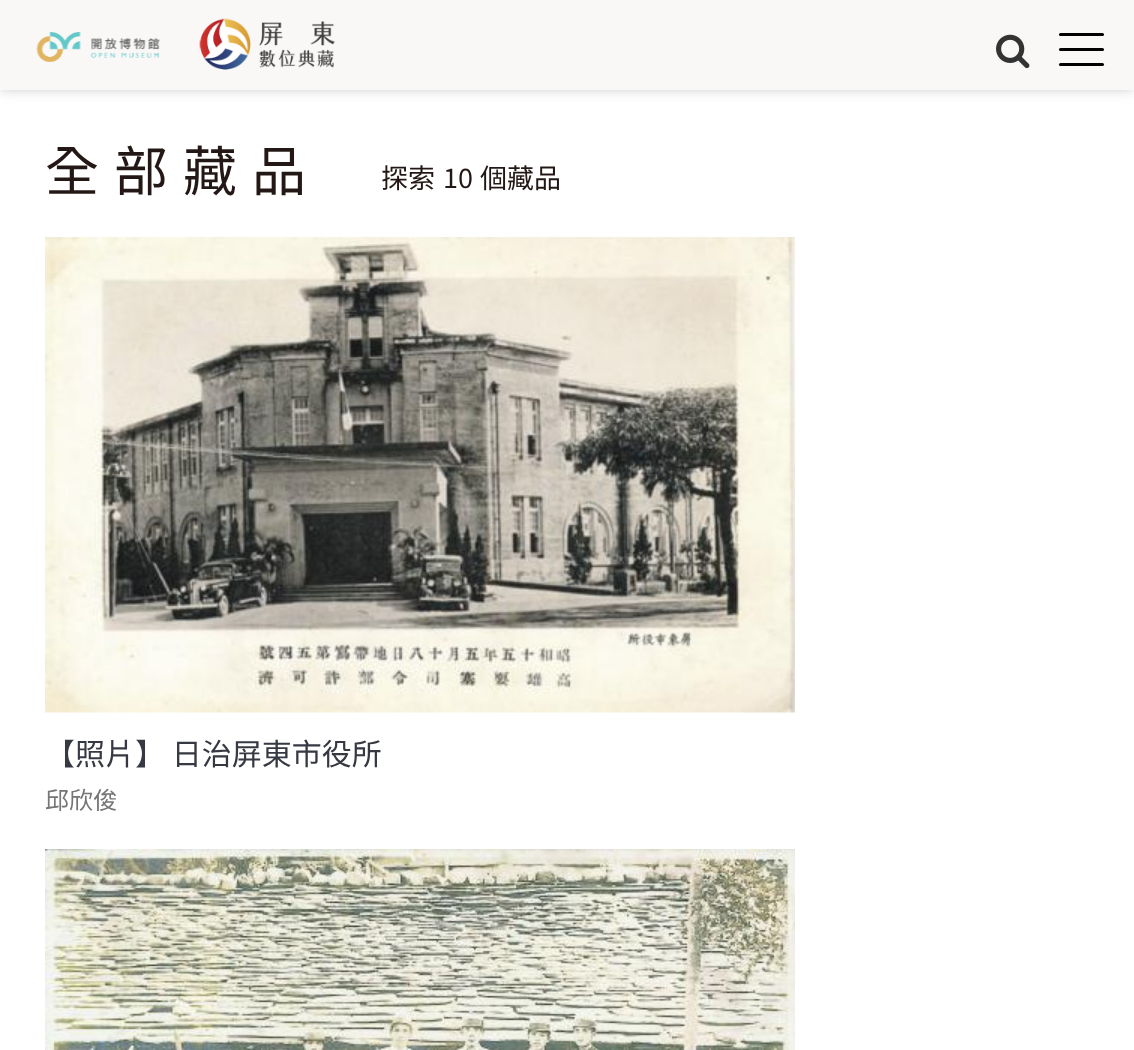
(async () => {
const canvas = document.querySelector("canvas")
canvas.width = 1134
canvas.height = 1050
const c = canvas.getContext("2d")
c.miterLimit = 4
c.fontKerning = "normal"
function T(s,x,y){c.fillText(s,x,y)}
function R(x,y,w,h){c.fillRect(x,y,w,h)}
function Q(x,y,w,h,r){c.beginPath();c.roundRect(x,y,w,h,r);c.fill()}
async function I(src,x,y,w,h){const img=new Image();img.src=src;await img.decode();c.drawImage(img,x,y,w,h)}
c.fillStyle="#fff"
R(0,0,1134,1050)
c.fillStyle="#cfcfcf"
c.filter="blur(6px)"
c.beginPath()
c.rect(0,0,1134,90)
c.fill()
c.filter="none"
c.fillStyle="#f9f8f7"
R(0,0,1134,90)
await I("1.png",36,32,124,31)
await I("2.png",199,18,136,52)
await I("3.png",996,34,34,35)
c.fillStyle="#000"
Q(1059,63,45,3,1.5)
Q(1059,33,45,3,1.5)
Q(1059,48,45,3,1.5)
c.letterSpacing="15px"
c.font="54px Noto Sans TC"
c.fillStyle="#231815"
T("全部藏品",45,191)
c.letterSpacing="0px"
c.font="27px Noto Sans TC"
T("探索",381,188)
T("10",443,188)
T("個藏品",480,188)
await I("4.png",45,237,750,476)
c.font="30px Noto Sans TC"
c.fillStyle="#363942"
T("【照片】 日治屏東市役所",45,765)
c.font="24px Noto Sans TC"
c.fillStyle="#757575"
T("邱欣俊",45,809)
await I("5.png",45,849,750,201)
})()
